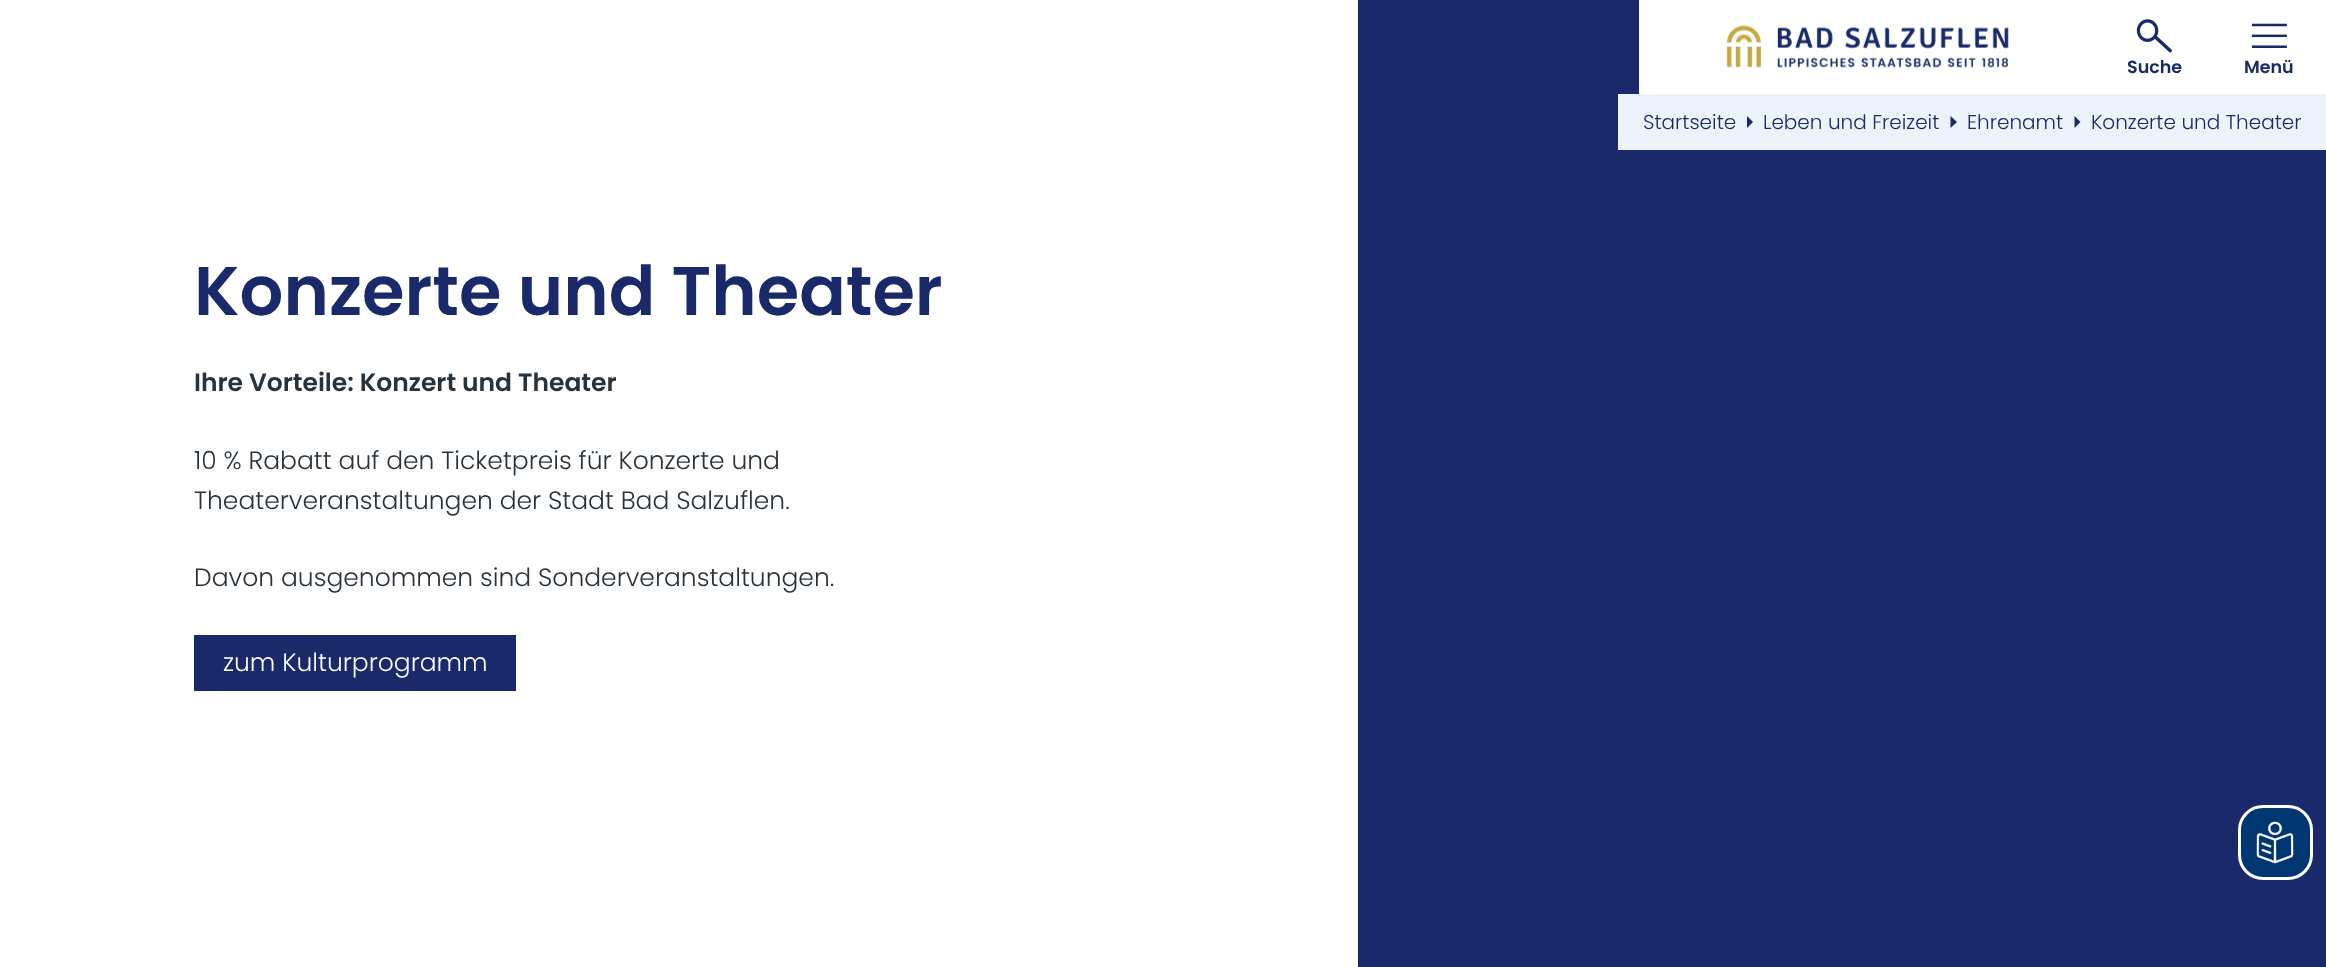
(async () => {
const canvas = document.querySelector("canvas")
canvas.width = 2326
canvas.height = 967
const c = canvas.getContext("2d")
c.miterLimit = 4
c.fontKerning = "normal"
function T(s,x,y){c.fillText(s,x,y)}
function R(x,y,w,h){c.fillRect(x,y,w,h)}
async function I(src,x,y,w,h){const img=new Image();img.src=src;await img.decode();c.drawImage(img,x,y,w,h)}
let path
c.fillStyle="#fff"
R(0,0,2326,967)
c.fillStyle="#192969"
R(1358,0,968,967)
c.fillStyle="#fff"
R(1639,0,687,94)
await I("1.png",1726,25,283,43)
await I("2.png",2136,19,36,34)
c.font="600 17.5px Poppins"
c.fillStyle="#192969"
T("Suche",2127,73)
await I("3.png",2251,23,36,25)
T("Menü",2244,73)
c.fillStyle="#ecf3fa"
R(1618,94,708,56)
c.font="300 20px Poppins"
c.fillStyle="#192969"
T("Startseite",1643,129)
path = new Path2D("M1747 128l6-6l-6-6z")
c.fill(path)
T("Leben und Freizeit",1763,129)
path = new Path2D("M1950.5 128l6.5-6l-6.5-6z")
c.fill(path)
T("Ehrenamt",1967,129)
path = new Path2D("M2074.5 128l6-6l-6-6z")
c.fill(path)
T("Konzerte und Theater",2091,129)
c.font="600 68.75px Poppins"
T("Konzerte und Theater",194,315)
c.font="600 25px Poppins"
c.fillStyle="#28323b"
T("Ihre Vorteile: Konzert und Theater",194,391)
c.font="300 25px Poppins"
T("10 % Rabatt auf den Ticketpreis für Konzerte und",194,469)
T("Theaterveranstaltungen der Stadt Bad Salzuflen.",194,509)
T("Davon ausgenommen sind Sonderveranstaltungen.",194,586)
c.fillStyle="#192969"
R(194,635,322,56)
c.fillStyle="#fff"
T("zum Kulturprogramm",223,671)
c.fillStyle="#003671"
c.beginPath()
c.roundRect(2239.5,806.5,72,72,23.5)
c.fill()
c.strokeStyle="#fff"
c.lineWidth=3
c.stroke()
await I("4.png",2256,821,38,43)
})()
